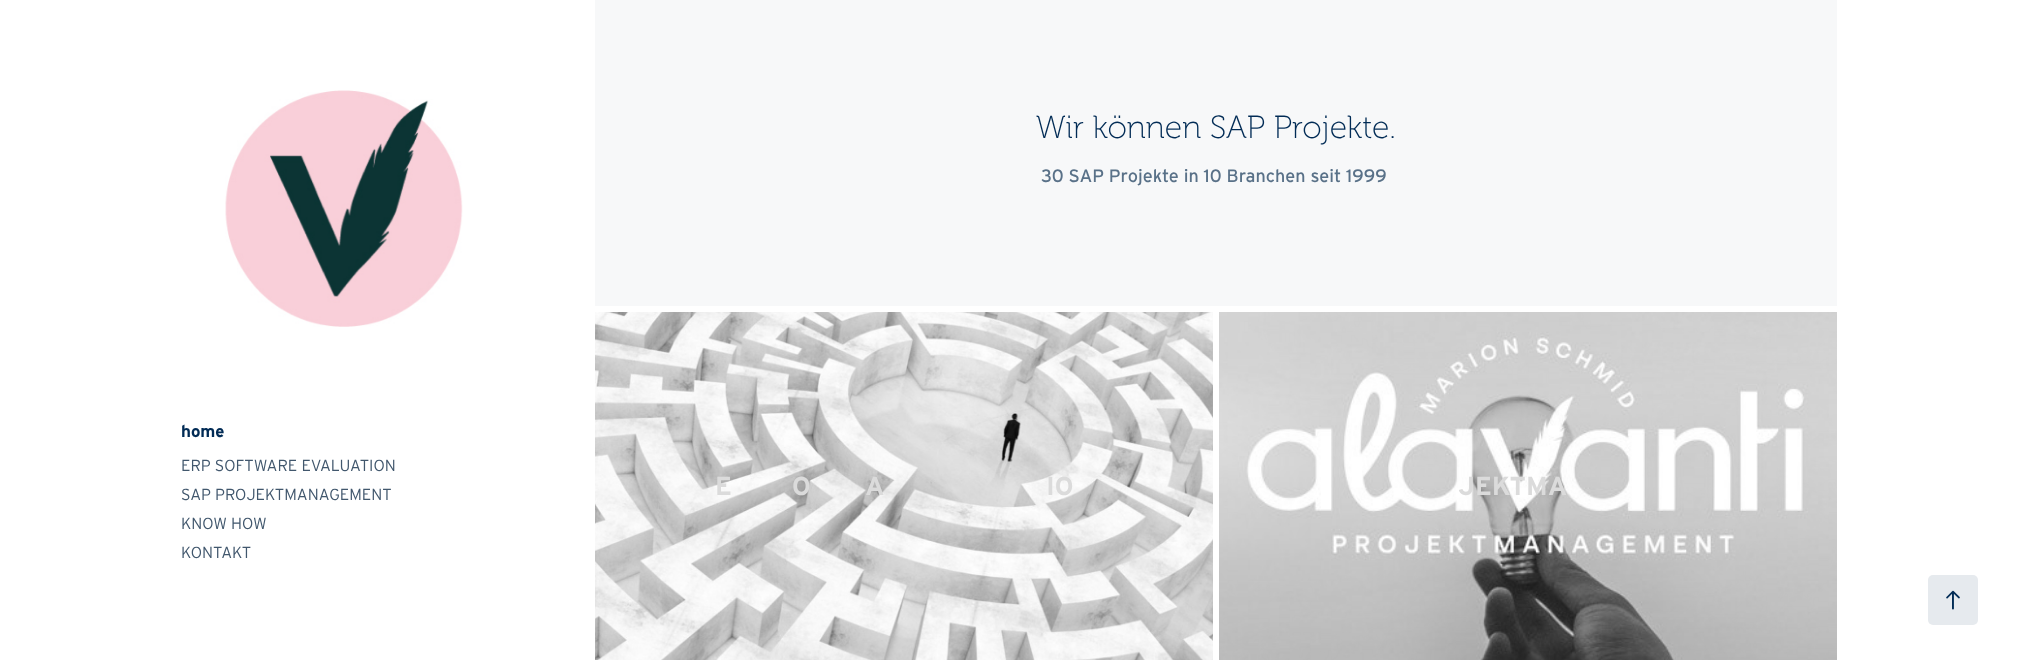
(async () => {
const canvas = document.querySelector("canvas")
canvas.width = 2018
canvas.height = 665
const c = canvas.getContext("2d")
c.miterLimit = 4
c.fontKerning = "normal"
function T(s,x,y){c.fillText(s,x,y)}
function R(x,y,w,h){c.fillRect(x,y,w,h)}
function Q(x,y,w,h,r){c.beginPath();c.roundRect(x,y,w,h,r);c.fill()}
async function I(src,x,y,w,h){const img=new Image();img.src=src;await img.decode();c.drawImage(img,x,y,w,h)}
c.fillStyle="#fff"
R(0,0,2018,665)
await I("1.png",225,90,238,237)
c.font="bold 17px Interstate"
c.fillStyle="#012b55"
T("home",181,437)
c.font="300 16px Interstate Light"
c.fillStyle="#41576d"
T("ERP SOFTWARE EVALUATION",181,471)
T("SAP PROJEKTMANAGEMENT",181,500)
T("KNOW HOW",181,529)
T("KONTAKT",181,558)
c.fillStyle="#f7f8f9"
R(595,0,1242,306)
c.font="300 32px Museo"
c.fillStyle="#012b55"
T("Wir können SAP Projekte.",1036,138)
c.font="18px Interstate"
c.fillStyle="#597188"
T("30 SAP Projekte in 10 Branchen seit 1999",1041,182)
await I("2.png",595,312,618,348)
c.font="bold 26px Interstate"
c.fillStyle="#dbdbdb"
T("E",715,495)
T("O",792,495)
T("A",865,495)
T("IO",1046,495)
await I("3.png",1219,312,618,348)
T("JEKTMA",1458,495)
c.fillStyle="#e6eaee"
Q(1928,575,50,50,5)
await I("4.png",1946,590,14,20)
})()
